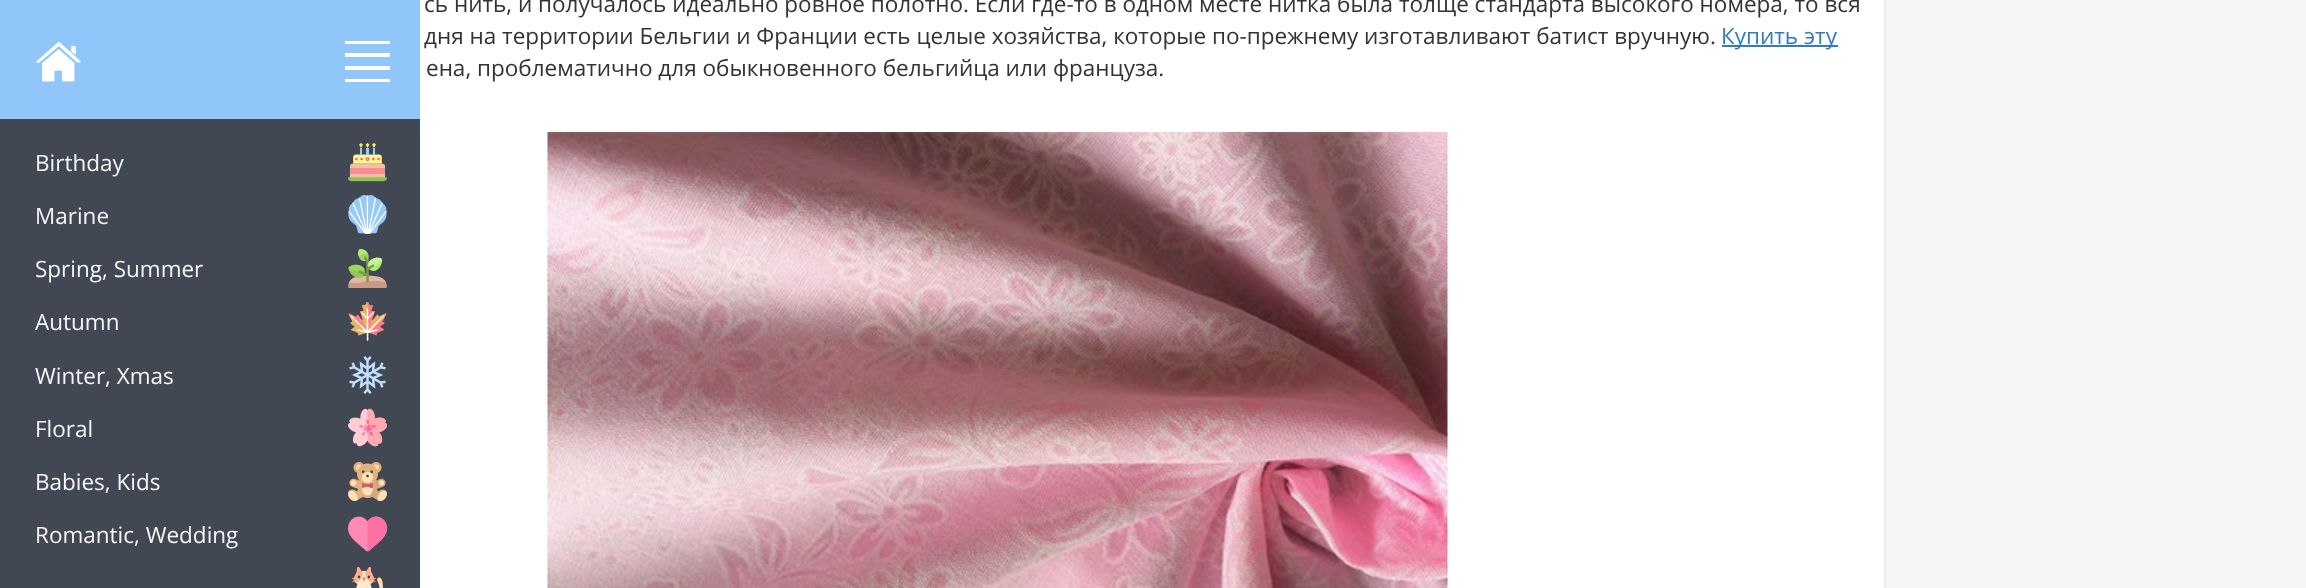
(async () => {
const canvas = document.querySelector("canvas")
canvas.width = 2306
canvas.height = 588
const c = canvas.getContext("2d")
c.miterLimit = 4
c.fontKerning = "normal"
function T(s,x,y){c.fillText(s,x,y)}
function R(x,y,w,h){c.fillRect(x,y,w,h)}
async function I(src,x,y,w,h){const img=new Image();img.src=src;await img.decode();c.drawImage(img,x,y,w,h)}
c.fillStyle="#f5f5f5"
R(0,0,2306,588)
c.fillStyle="#fff"
R(420,0,1464,588)
c.strokeStyle="#ededed"
c.lineWidth=2
c.strokeRect(111,-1,1774,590)
c.font="22.5px Open Sans"
c.fillStyle="#333"
T("сь нить, и получалось идеально ровное полотно. Если где-то в одном месте нитка была толще стандарта высокого номера, то вся",424,12)
T("дня на территории Бельгии и Франции есть целые хозяйства, которые по-прежнему изготавливают батист вручную.",424,44)
c.fillStyle="#317bc6"
R(1722,45,116,2)
T("Купить эту",1721,44)
c.fillStyle="#333"
T("ена, проблематично для обыкновенного бельгийца или француза.",426,76)
await I("1.png",547,132,901,456)
c.fillStyle="#424754"
R(0,119,420,469)
c.fillStyle="#90c6f9"
R(0,0,420,119)
await I("2.png",36,41,45,41)
c.fillStyle="#fff"
R(345,41,45,3)
R(345,53,45,4)
R(345,66,45,4)
R(345,79,45,3)
c.fillStyle="#f5f5f5"
T("Birthday",35,171)
await I("3.png",348,143,39,39)
T("Marine",35,224)
await I("4.png",348,195,39,39)
T("Spring, Summer",35,277)
await I("5.png",348,249,39,39)
T("Autumn",35,330)
await I("6.png",348,302,39,39)
T("Winter, Xmas",35,384)
await I("7.png",349,356,37,38)
T("Floral",35,437)
await I("8.png",348,408,39,39)
T("Babies, Kids",35,490)
await I("9.png",348,462,39,39)
T("Romantic, Wedding",35,543)
await I("10.png",348,516,39,36)
await I("11.png",352,567,31,21)
})()
